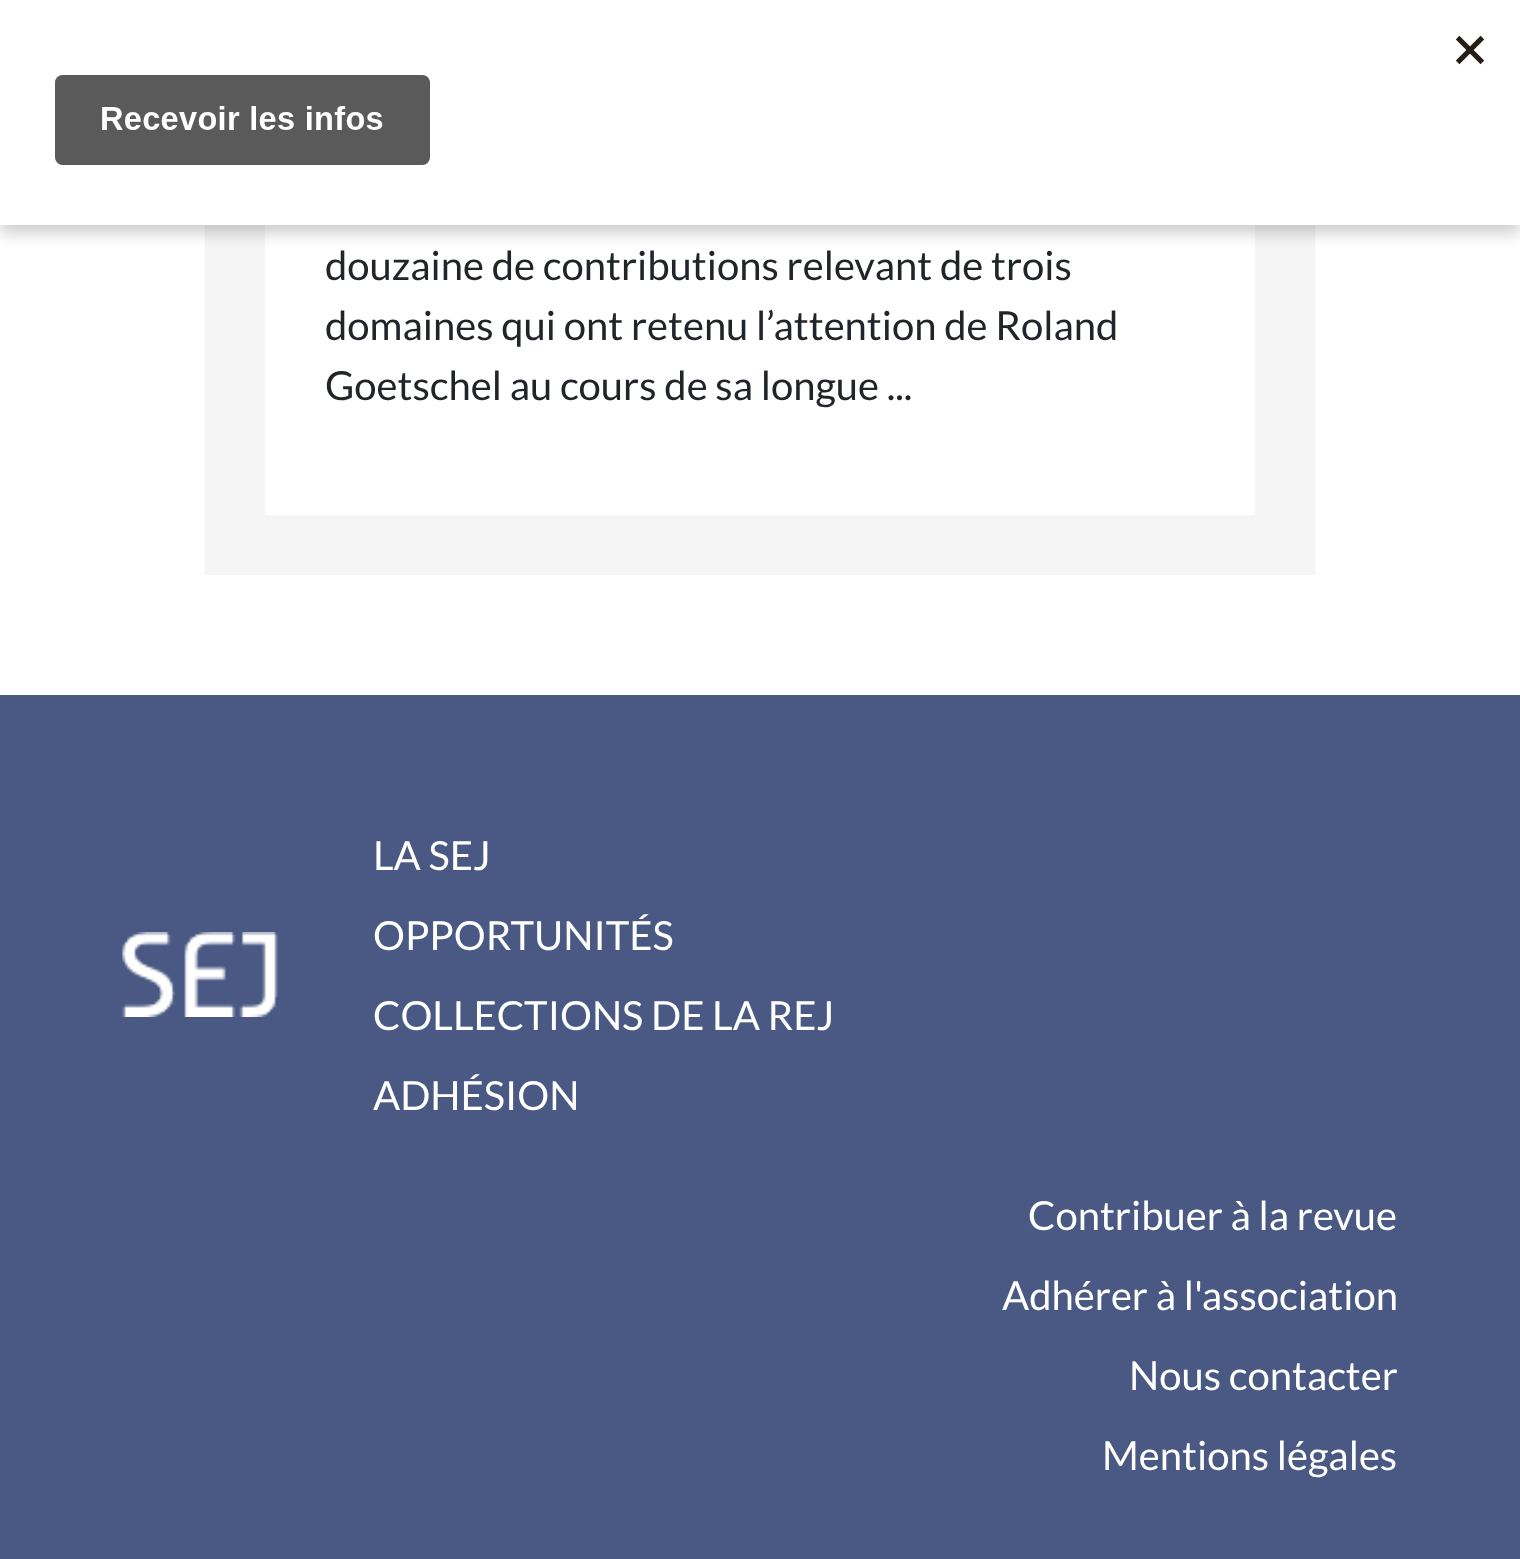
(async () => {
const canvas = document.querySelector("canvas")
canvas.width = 1520
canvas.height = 1559
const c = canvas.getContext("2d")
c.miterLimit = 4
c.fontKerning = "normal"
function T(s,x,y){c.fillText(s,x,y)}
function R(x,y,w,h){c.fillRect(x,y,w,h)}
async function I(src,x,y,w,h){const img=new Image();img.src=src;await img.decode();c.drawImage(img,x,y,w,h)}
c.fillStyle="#fff"
R(0,0,1520,1559)
c.fillStyle="#f5f5f5"
R(205,225,1110,350)
c.fillStyle="#fff"
R(265,225,990,290)
c.fillStyle="#00000033"
c.filter="blur(7.5px)"
c.beginPath()
c.rect(0,8,1520,225)
c.fill()
c.filter="none"
c.fillStyle="#fff"
R(0,0,1520,225)
await I("1.png",55,35,1429,130)
c.font="40px Lato"
c.fillStyle="#212529"
T("douzaine de contributions relevant de trois",325,280)
T("domaines qui ont retenu l’attention de Roland",325,340)
T("Goetschel au cours de sa longue ...",325,400)
c.fillStyle="#4a5983"
R(0,695,1520,864)
await I("2.png",122,932,156,85)
c.fillStyle="#fff"
T("LA SEJ",373,870)
T("OPPORTUNITÉS",373,950)
T("COLLECTIONS DE LA REJ",373,1030)
T("ADHÉSION",373,1110)
T("Contribuer à la revue",1028,1230)
T("Adhérer à l'association",1002,1310)
T("Nous contacter",1129,1390)
T("Mentions légales",1102,1470)
})()
